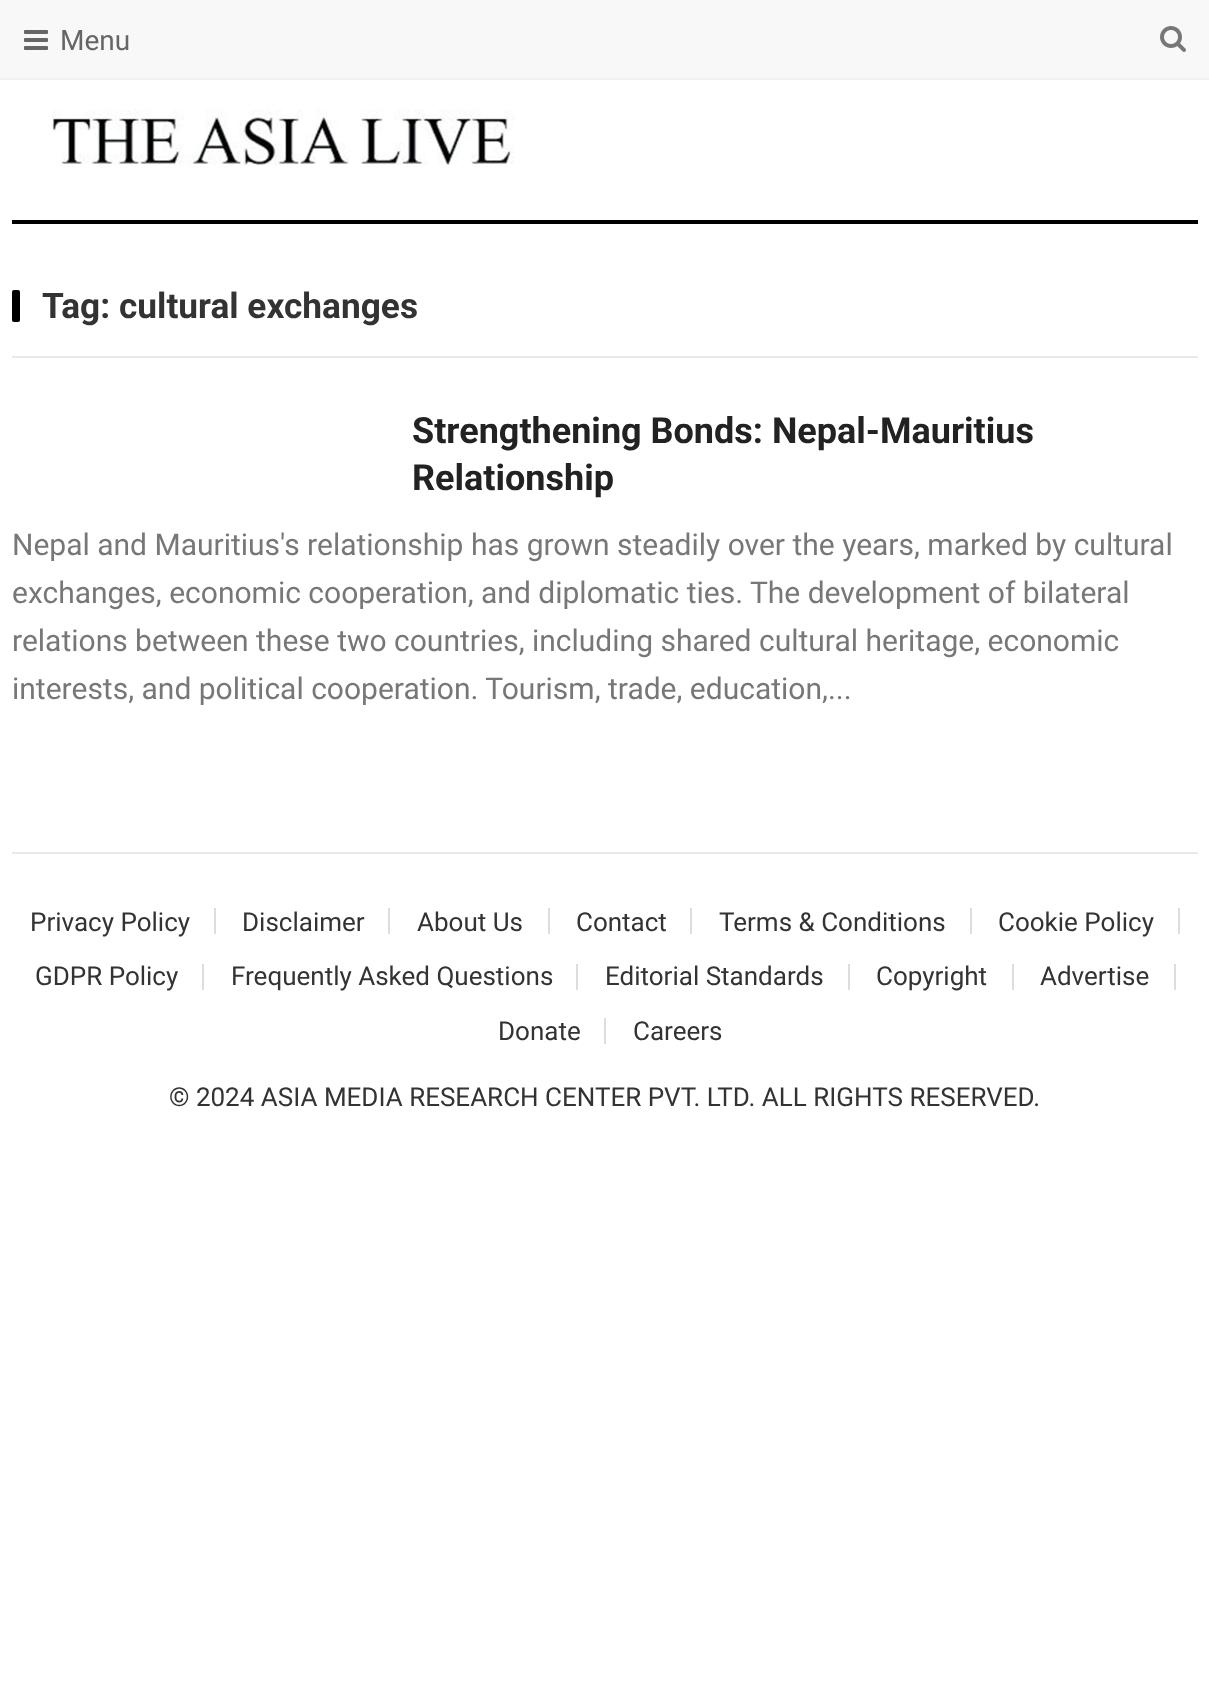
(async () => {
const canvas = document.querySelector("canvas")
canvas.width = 1209
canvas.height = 1699
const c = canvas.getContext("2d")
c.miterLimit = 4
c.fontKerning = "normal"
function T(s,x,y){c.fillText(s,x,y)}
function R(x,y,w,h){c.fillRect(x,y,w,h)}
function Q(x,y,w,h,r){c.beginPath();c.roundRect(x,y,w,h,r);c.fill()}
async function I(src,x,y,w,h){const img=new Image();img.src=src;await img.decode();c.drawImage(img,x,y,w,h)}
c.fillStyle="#fff"
R(0,0,1209,1699)
c.fillStyle="#f8f8f8"
R(0,0,1209,78)
c.fillStyle="#f0f0f0"
R(0,78,1209,2)
await I("1.png",24,30,24,20)
c.font="28px Roboto"
c.fillStyle="#666"
T("Menu",60,50)
await I("2.png",51,109,464,57)
await I("3.png",1160,26,26,26)
c.fillStyle="#000"
R(12,220,1186,4)
c.fillStyle="#e9e9e9"
R(12,356,1186,2)
c.fillStyle="#000"
Q(12,290,8,32,2)
c.font="bold 35.25px Roboto"
c.fillStyle="#333"
T("Tag: cultural exchanges",42,318)
c.font="bold 36px Roboto"
c.fillStyle="#222"
T("Strengthening Bonds: Nepal-Mauritius",412,443)
T("Relationship",412,490)
c.font="30px Roboto"
c.fillStyle="#777"
T("Nepal and Mauritius's relationship has grown steadily over the years, marked by cultural",12,555)
T("exchanges, economic cooperation, and diplomatic ties. The development of bilateral",12,603)
T("relations between these two countries, including shared cultural heritage, economic",12,651)
T("interests, and political cooperation. Tourism, trade, education,...",12,699)
c.fillStyle="#e9e9e9"
R(12,852,1186,2)
c.fillStyle="#ddd"
R(214,908,2,26)
c.font="26px Roboto"
c.fillStyle="#333"
T("Privacy Policy",30,931)
c.fillStyle="#ddd"
R(388,908,2,26)
c.fillStyle="#333"
T("Disclaimer",242,931)
c.fillStyle="#ddd"
R(548,908,2,26)
c.fillStyle="#333"
T("About Us",417,931)
c.fillStyle="#ddd"
R(690,908,2,26)
c.fillStyle="#333"
T("Contact",576,931)
c.fillStyle="#ddd"
R(970,908,2,26)
c.fillStyle="#333"
T("Terms & Conditions",719,931)
c.fillStyle="#ddd"
R(1178,908,2,26)
c.fillStyle="#333"
T("Cookie Policy",998,931)
c.fillStyle="#ddd"
R(202,964,2,26)
c.fillStyle="#333"
T("GDPR Policy",35,985)
c.fillStyle="#ddd"
R(576,964,2,26)
c.fillStyle="#333"
T("Frequently Asked Questions",231,985)
c.fillStyle="#ddd"
R(848,964,2,26)
c.fillStyle="#333"
T("Editorial Standards",605,985)
c.fillStyle="#ddd"
R(1012,964,2,26)
c.fillStyle="#333"
T("Copyright",876,985)
c.fillStyle="#ddd"
R(1174,964,2,26)
c.fillStyle="#333"
T("Advertise",1040,985)
c.fillStyle="#ddd"
R(604,1018,2,26)
c.fillStyle="#333"
T("Donate",498,1040)
T("Careers",633,1040)
T("© 2024 ASIA MEDIA RESEARCH CENTER PVT. LTD. ALL RIGHTS RESERVED.",169,1106)
})()
